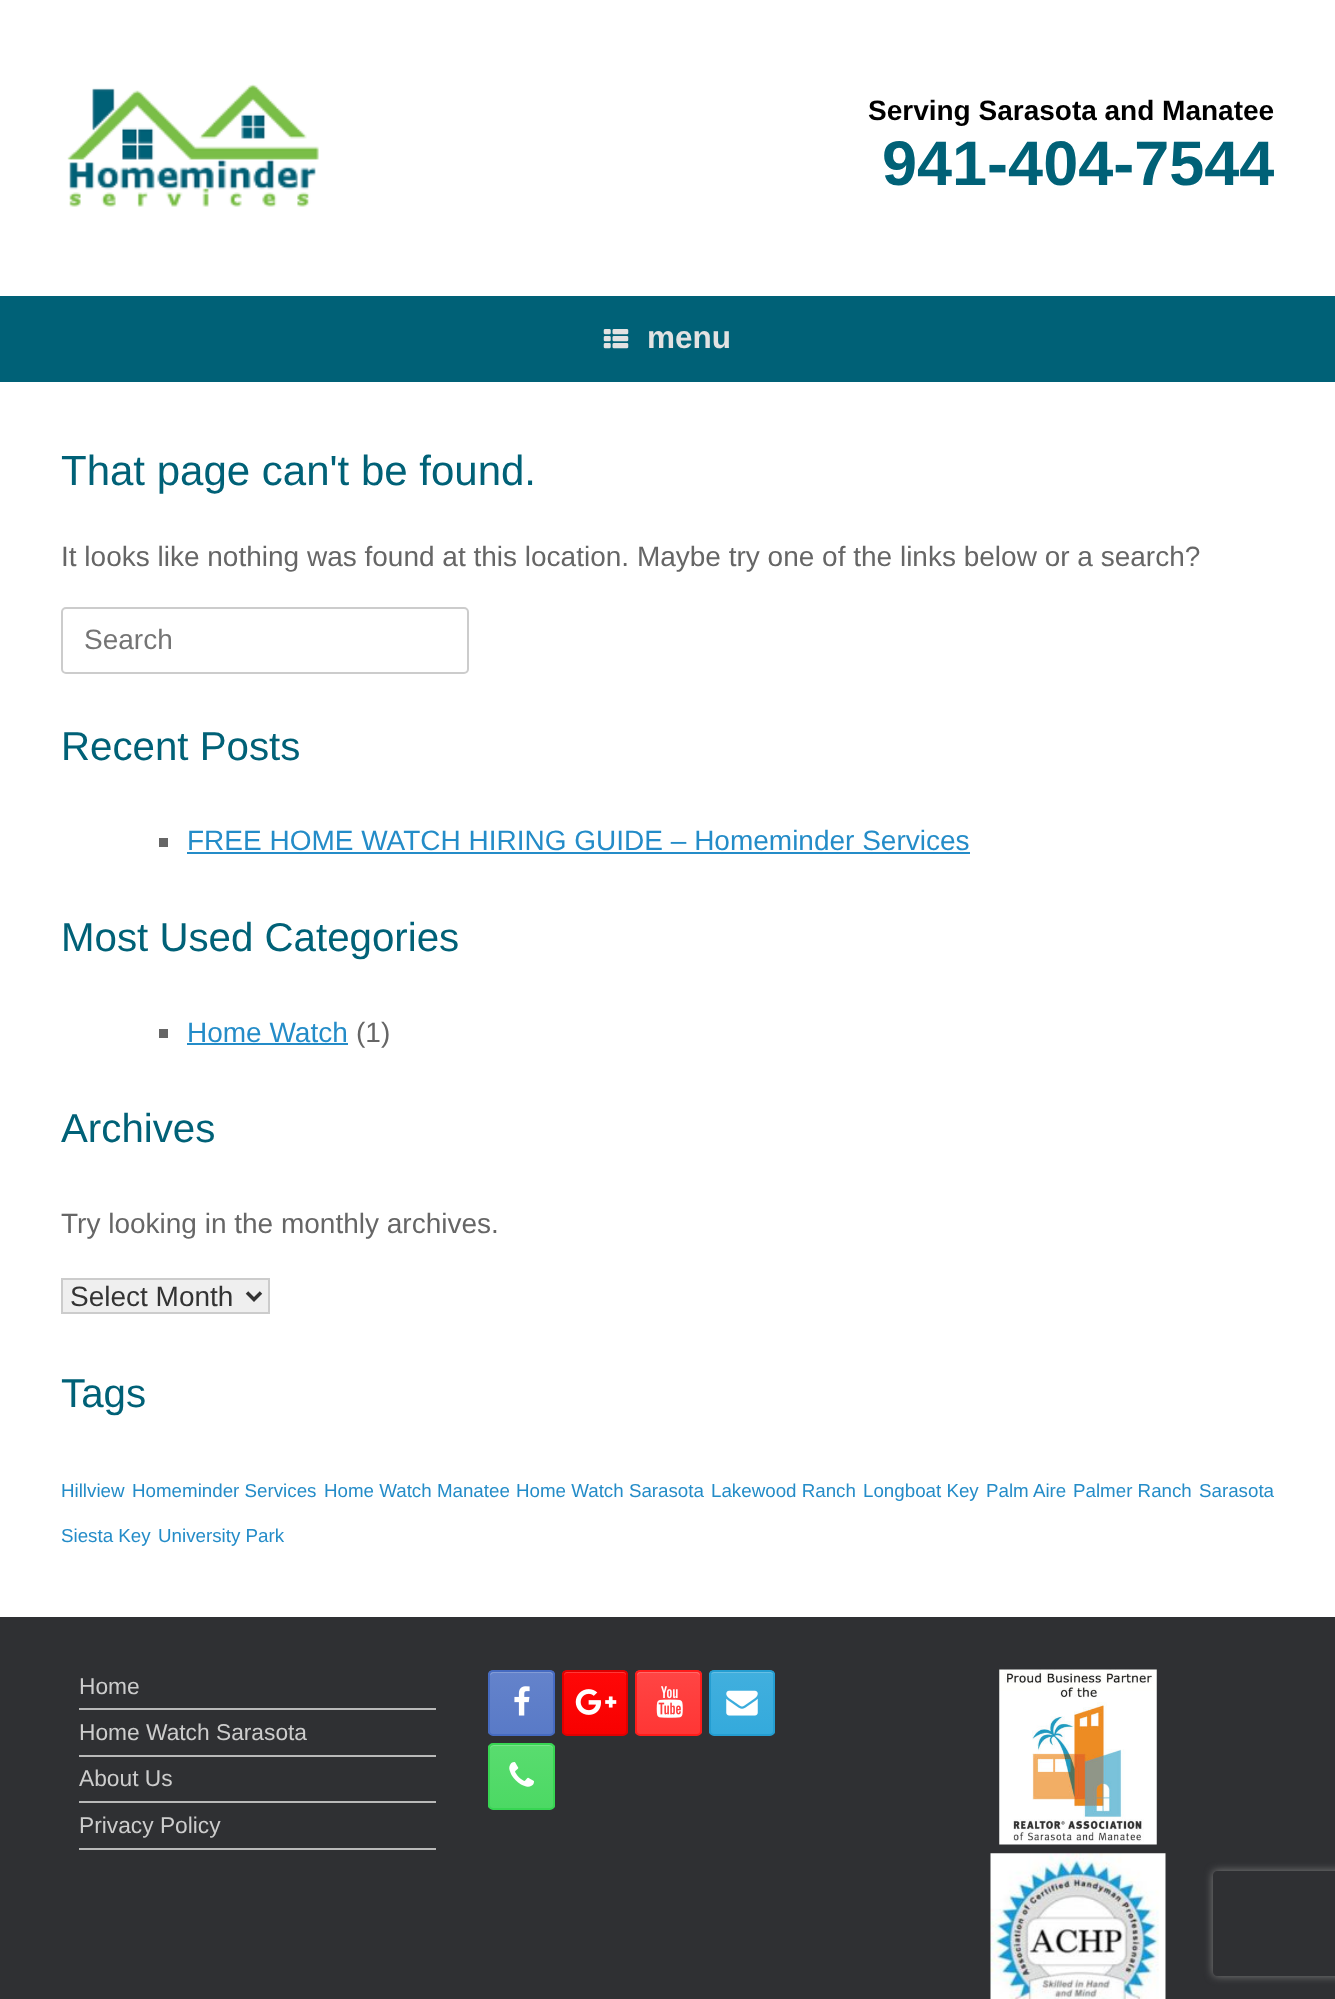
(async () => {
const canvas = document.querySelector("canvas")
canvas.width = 1335
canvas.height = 1999
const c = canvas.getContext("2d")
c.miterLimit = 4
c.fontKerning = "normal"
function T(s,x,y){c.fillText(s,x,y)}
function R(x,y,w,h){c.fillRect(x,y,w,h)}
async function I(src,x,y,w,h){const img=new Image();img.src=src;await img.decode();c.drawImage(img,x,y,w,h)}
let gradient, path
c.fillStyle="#2f3033"
R(0,0,1335,1999)
c.fillStyle="#fff"
R(0,0,1335,296)
await I("1.png",67,84,252,123)
c.font="bold 28px Liberation Sans"
c.fillStyle="#000"
T("Serving Sarasota and Manatee",868,120)
c.font="bold 63px Liberation Sans"
c.fillStyle="#006177"
T("941-404-7544",882,185)
R(0,296,1335,86)
await I("2.png",603,329,26,20)
c.font="bold 31.5px Liberation Sans"
c.fillStyle="#e2e2e2"
T("menu",647,348)
c.fillStyle="#fff"
R(0,382,1335,1235)
c.font="42px Liberation Sans"
c.fillStyle="#006177"
T("That page can't be found.",61,485)
c.font="28px Liberation Sans"
c.fillStyle="#666"
T("It looks like nothing was found at this location. Maybe try one of the links below or a search?",61,566)
c.beginPath()
c.roundRect(62,608,406,65,4)
c.strokeStyle="#ccc"
c.lineWidth=2
c.stroke()
c.fillStyle="#757575"
T("Search",84,649)
c.font="40.25px Liberation Sans"
c.fillStyle="#006177"
T("Recent Posts",61,760)
c.fillStyle="#666"
R(159,838,9,9)
c.font="28px Liberation Sans"
c.fillStyle="#248cc8"
T("FREE HOME WATCH HIRING GUIDE – Homeminder Services",187,850)
R(187,852,783,2)
c.font="40.25px Liberation Sans"
c.fillStyle="#006177"
T("Most Used Categories",61,951)
c.fillStyle="#666"
R(159,1029,9,9)
c.font="28px Liberation Sans"
c.fillStyle="#248cc8"
T("Home Watch",187,1042)
R(187,1043,161,2)
c.fillStyle="#666"
T("(1)",356,1042)
c.font="40.25px Liberation Sans"
c.fillStyle="#006177"
T("Archives",61,1142)
c.font="28px Liberation Sans"
c.fillStyle="#666"
T("Try looking in the monthly archives.",61,1233)
c.fillStyle="#efefef"
c.beginPath()
c.rect(62,1279,207,34)
c.fill()
c.stroke()
path = new Path2D("M247 1292.5l7 7l7-7")
c.strokeStyle="#333"
c.lineWidth=3.5
c.stroke(path)
c.fillStyle="#333"
T("Select Month",70,1306)
c.font="40.25px Liberation Sans"
c.fillStyle="#006177"
T("Tags",61,1407)
c.font="18.75px Liberation Sans"
c.fillStyle="#248cc8"
T("Hillview",61,1497)
T("Homeminder Services",132,1497)
T("Home Watch Manatee",324,1497)
T("Home Watch Sarasota",516,1497)
T("Lakewood Ranch",711,1497)
T("Longboat Key",863,1497)
T("Palm Aire",986,1497)
T("Palmer Ranch",1073,1497)
T("Sarasota",1199,1497)
T("Siesta Key",61,1542)
T("University Park",158,1542)
c.fillStyle="#b9b9b9"
R(79,1708,357,2)
c.font="22.75px Liberation Sans"
c.fillStyle="#ccc"
T("Home",79,1694)
c.fillStyle="#b9b9b9"
R(79,1755,357,2)
c.fillStyle="#ccc"
T("Home Watch Sarasota",79,1740)
c.fillStyle="#b9b9b9"
R(79,1801,357,2)
c.fillStyle="#ccc"
T("About Us",79,1786)
c.fillStyle="#b9b9b9"
R(79,1848,357,2)
c.fillStyle="#ccc"
T("Privacy Policy",79,1833)
c.save()
c.beginPath()
c.roundRect(488,1670,67,66,5)
c.clip()
gradient = c.createLinearGradient(522,1734,522,1671)
gradient.addColorStop(0,"#597ac7")
gradient.addColorStop(1,"#6483cb")
c.fillStyle = gradient
R(488,1671,67,63)
c.restore()
c.fillStyle="#839cd5"
path = new Path2D("M494 1673h56c1 0 3 2 3 3c0-7-8-5-13-5h-37c-5 0-13-2-13 5c0-1 2-3 4-3z")
c.fill(path)
c.beginPath()
c.roundRect(489,1671,65,64,4)
c.strokeStyle="#466bc1"
c.lineWidth=2
c.stroke()
await I("3.png",514,1686,16,30)
c.save()
c.beginPath()
c.roundRect(562,1670,66,66,5)
c.clip()
gradient = c.createLinearGradient(595,1734,595,1671)
gradient.addColorStop(0,"#f80000")
gradient.addColorStop(1,"#ff0808")
c.fillStyle = gradient
R(562,1671,66,63)
c.restore()
c.fillStyle="#ffffff33"
path = new Path2D("M567 1673h57c4 1 2 12 2 12v48c1-1 1-2 1-3v-55c0-2-2-4-4-4h-55c-2 0-4 2-4 4v1c0-1 1-3 3-3z")
c.fill(path)
c.beginPath()
c.roundRect(563,1671,64,64,4)
c.strokeStyle="#df0000"
c.stroke()
await I("4.png",575,1689,42,26)
c.save()
c.beginPath()
c.roundRect(635,1670,67,66,5)
c.clip()
gradient = c.createLinearGradient(669,1734,669,1671)
gradient.addColorStop(0,"#ff3635")
gradient.addColorStop(1,"#ff4544")
c.fillStyle = gradient
R(635,1671,67,63)
c.restore()
c.fillStyle="#ff6a69"
path = new Path2D("M640 1673h56c2 0 4 2 4 3c0-7-8-5-13-5h-37c-5 0-13-2-13 5c0-1 2-3 3-3z")
c.fill(path)
c.beginPath()
c.roundRect(636,1671,65,64,4)
c.strokeStyle="#ff1d1b"
c.stroke()
await I("5.png",656,1686,27,32)
c.save()
c.beginPath()
c.roundRect(709,1670,66,66,5)
c.clip()
gradient = c.createLinearGradient(742,1734,742,1671)
gradient.addColorStop(0,"#34aadc")
gradient.addColorStop(1,"#41afde")
c.fillStyle = gradient
R(709,1671,66,63)
c.restore()
c.fillStyle="#67bfe5"
path = new Path2D("M714 1673h56c2 0 4 2 4 3v-1c0-2-2-4-4-4h-55c-2 0-4 1-4 3z")
c.fill(path)
c.beginPath()
c.roundRect(710,1671,64,64,4)
c.strokeStyle="#249ed2"
c.stroke()
await I("6.png",726,1690,32,26)
c.save()
c.beginPath()
c.roundRect(488,1743,67,67,5)
c.clip()
gradient = c.createLinearGradient(522,1808,522,1745)
gradient.addColorStop(0,"#4cd964")
gradient.addColorStop(1,"#59dc6f")
c.fillStyle = gradient
R(488,1745,67,63)
c.restore()
c.fillStyle="#7ae38c"
path = new Path2D("M494 1746h56c1 0 3 2 3 4c0-7-8-5-13-5h-37c-5 0-13-2-13 5c0-2 2-4 4-4z")
c.fill(path)
c.beginPath()
c.roundRect(489,1744,65,65,4)
c.strokeStyle="#37d552"
c.stroke()
await I("7.png",509,1762,25,25)
await I("8.png",999,1669,158,176)
await I("9.png",990,1853,176,146)
c.save()
path = new Path2D("M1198 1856h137v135h-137zm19 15h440c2 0 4 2 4 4v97c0 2-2 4-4 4h-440c-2 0-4-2-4-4v-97c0-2 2-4 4-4z")
c.clip(path,"evenodd")
c.fillStyle="#808080"
c.filter="blur(4.5px)"
c.beginPath()
c.roundRect(1213,1871,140,105,4)
c.fill()
c.filter="none"
c.restore()
})()
